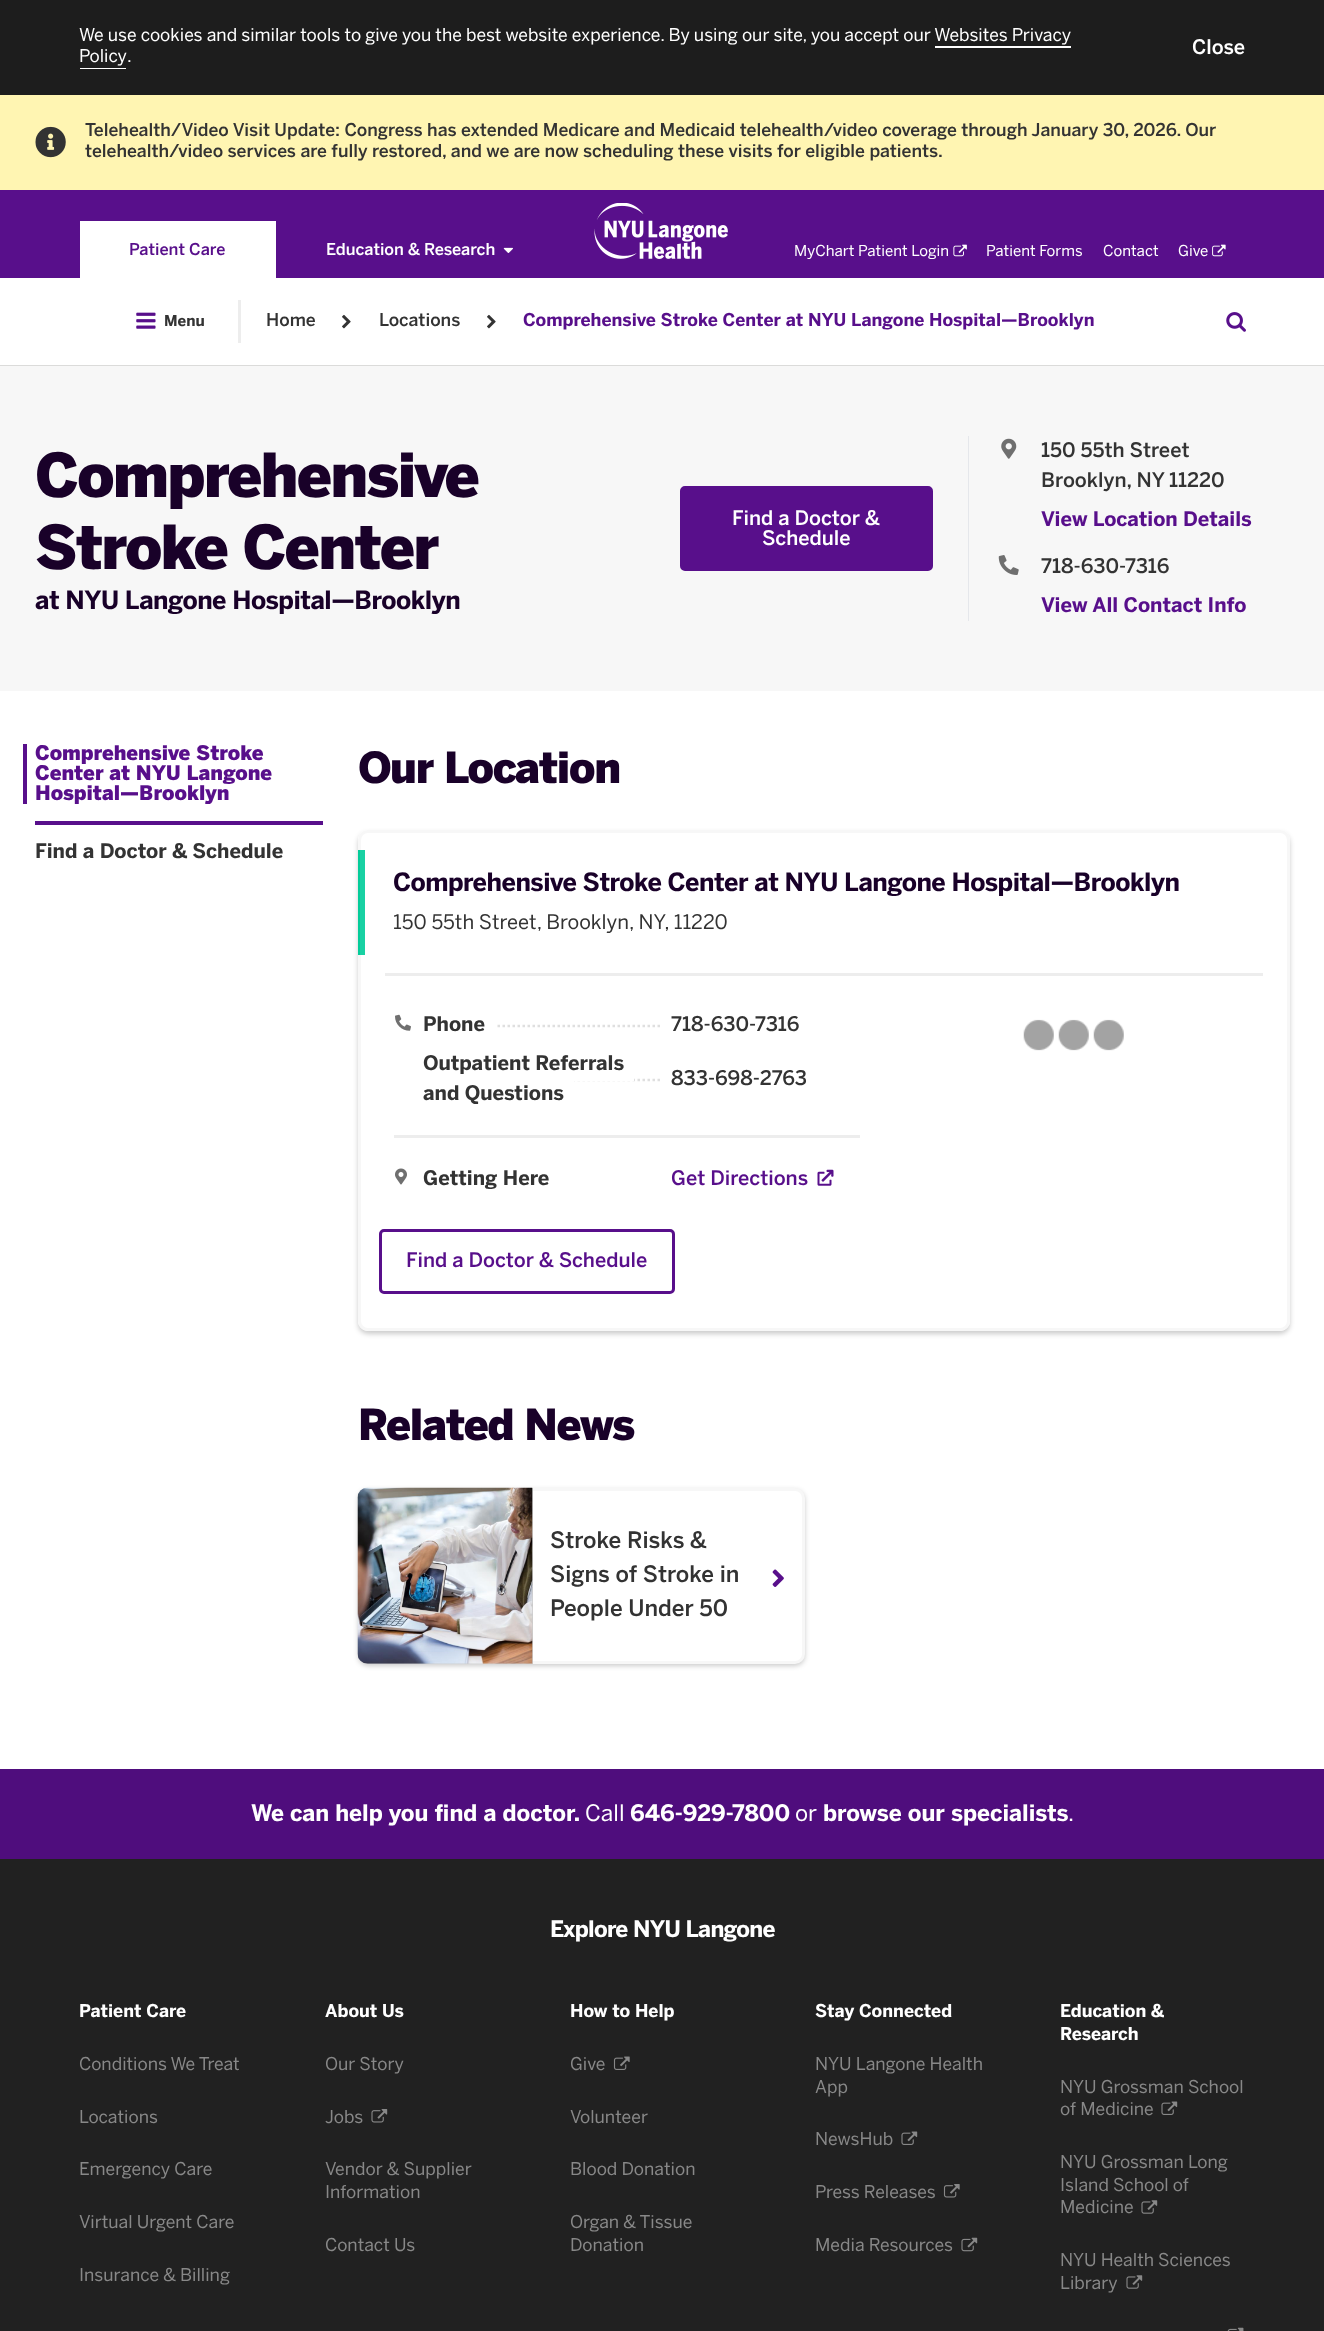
(async () => {
const canvas = document.querySelector("canvas")
canvas.width = 1324
canvas.height = 2331
const c = canvas.getContext("2d")
c.miterLimit = 4
c.fontKerning = "normal"
function T(s,x,y){c.fillText(s,x,y)}
function R(x,y,w,h){c.fillRect(x,y,w,h)}
async function I(src,x,y,w,h){const img=new Image();img.src=src;await img.decode();c.drawImage(img,x,y,w,h)}
let path
c.fillStyle="#fff"
R(0,0,1324,2331)
c.fillStyle="#1d1d1d"
R(0,0,1324,95)
c.font="17.5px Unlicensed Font"
c.fillStyle="#fff"
T("We use cookies and similar tools to give you the best website experience. By using our site, you accept our Websites Privacy",79,41)
T("Policy",79,62)
R(935,46,136,2)
R(80,68,46,1)
T(".",127,62)
c.font="500 20px Unlicensed Font"
T("Close",1192,54)
c.fillStyle="#fff5b2"
R(0,95,1324,95)
await I("1.png",35,126,31,32)
c.font="500 17.5px Unlicensed Font"
c.fillStyle="#333"
T("Telehealth/Video Visit Update: Congress has extended Medicare and Medicaid telehealth/video coverage through January 30, 2026. Our",85,136)
T("telehealth/video services are fully restored, and we are now scheduling these visits for eligible patients.",85,157)
c.fillStyle="#580f8b"
R(0,190,1324,88)
c.fillStyle="#fff"
R(80,221,196,57)
c.font="500 16.25px Unlicensed Font"
c.fillStyle="#580f8b"
T("Patient Care",129,255)
c.fillStyle="#fff"
T("Education & Research",326,255)
await I("2.png",503,247,10,6)
await I("3.png",594,203,134,56)
c.font="15px Unlicensed Font"
T("MyChart Patient Login",794,256)
await I("4.png",953,244,14,13)
T("Patient Forms",986,256)
T("Contact",1103,256)
T("Give",1178,256)
await I("5.png",1212,244,14,13)
c.fillStyle="#dbdbda"
R(0,365,1324,1)
await I("6.png",136,312,20,17)
c.font="bold 15px Unlicensed Font"
c.fillStyle="#333"
T("Menu",164,326)
c.fillStyle="#ededed"
R(238,300,3,43)
c.font="500 17.5px Unlicensed Font"
c.fillStyle="#333"
T("Home",266,326)
await I("7.png",342,314,9,15)
T("Locations",379,326)
await I("7.png",487,314,9,15)
c.font="bold 17.5px Unlicensed Font"
c.fillStyle="#580f8b"
T("Comprehensive Stroke Center at NYU Langone Hospital—Brooklyn",523,326)
await I("8.png",1226,312,20,20)
c.fillStyle="#f7f7f7"
R(0,366,1324,325)
c.letterSpacing="-1.75px"
c.font="800 60px Unlicensed Font"
c.fillStyle="#190129"
T("Comprehensive",35,497)
T("Stroke Center",35,569)
c.letterSpacing="-0.5px"
c.font="bold 25px Unlicensed Font"
T("at NYU Langone Hospital—Brooklyn",35,609)
c.fillStyle="#580f8b"
c.beginPath()
c.roundRect(681.5,487.5,250,82,3.5)
c.fill()
c.strokeStyle="#580f8b"
c.lineWidth=3
c.stroke()
c.letterSpacing="0px"
c.font="500 20px Unlicensed Font"
c.fillStyle="#fff"
T("Find a Doctor &",732,525)
T("Schedule",762,545)
c.fillStyle="#e5e7eb"
R(968,436,1,185)
await I("9.png",1001,438,16,21)
c.fillStyle="#333"
T("150 55th Street",1041,457)
T("Brooklyn, NY 11220",1041,487)
c.font="bold 20px Unlicensed Font"
c.fillStyle="#580f8b"
T("View Location Details",1041,526)
await I("10.png",998,555,21,20)
c.font="500 20px Unlicensed Font"
c.fillStyle="#333"
T("718-630-7316",1041,573)
c.font="bold 20px Unlicensed Font"
c.fillStyle="#580f8b"
T("View All Contact Info",1041,612)
R(35,821,288,4)
R(23,744,4,60)
c.font="800 20px Unlicensed Font"
T("Comprehensive Stroke",35,760)
T("Center at NYU Langone",35,780)
T("Hospital—Brooklyn",35,800)
c.font="bold 20px Unlicensed Font"
c.fillStyle="#333"
T("Find a Doctor & Schedule",35,858)
c.letterSpacing="-1.25px"
c.font="800 42.5px Unlicensed Font"
c.fillStyle="#190129"
T("Our Location",358,783)
c.save()
path = new Path2D("M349 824h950v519h-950zm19 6h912c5.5 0 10 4.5 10 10v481c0 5.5-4.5 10-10 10h-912c-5.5 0-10-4.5-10-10v-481c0-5.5 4.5-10 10-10z")
c.clip(path,"evenodd")
c.fillStyle="#00000033"
c.filter="blur(2.5px)"
c.beginPath()
c.roundRect(358,833,932,501,10)
c.fill()
c.filter="none"
c.restore()
c.beginPath()
c.roundRect(359.5,831.5,929,498,8.5)
c.strokeStyle="#f7f7f7"
c.stroke()
c.fillStyle="#03cc9a"
R(358,850,2,105)
c.fillStyle="#00cc99e6"
R(360,850,5,105)
c.letterSpacing="-0.5px"
c.font="bold 25px Unlicensed Font"
c.fillStyle="#190129"
T("Comprehensive Stroke Center at NYU Langone Hospital—Brooklyn",393,891)
c.letterSpacing="0px"
c.font="20px Unlicensed Font"
c.fillStyle="#333"
T("150 55th Street, Brooklyn, NY, 11220",393,929)
c.fillStyle="#ededed"
R(385,973,878,3)
await I("11.png",395,1014,16,17)
path = new Path2D("M432.5 1026h228.5")
c.strokeStyle="#dfdfdf"
c.lineWidth=2.5
c.setLineDash([2.5,2.5])
c.stroke(path)
c.fillStyle="#fff"
path = new Path2D("M433 1006h52v36h-52v1h62v-37z")
c.fill(path)
R(432,1024,53,4)
c.font="bold 20px Unlicensed Font"
c.fillStyle="#333"
T("Phone",423,1031)
c.font="500 20px Unlicensed Font"
T("718-630-7316",671,1031)
c.font="bold 20px Unlicensed Font"
T("Outpatient Referrals",423,1070)
T("and Questions",423,1100)
path = new Path2D("M432.5 1080h228.5")
c.stroke(path)
c.fillStyle="#fff"
R(432,1078,202,3)
R(432,1081,142,1)
c.font="500 20px Unlicensed Font"
c.fillStyle="#333"
T("833-698-2763",671,1085)
c.fillStyle="#ededed"
R(394,1135,466,3)
await I("12.png",395,1168,12,17)
c.font="bold 20px Unlicensed Font"
c.fillStyle="#333"
T("Getting Here",423,1185)
c.font="500 20px Unlicensed Font"
c.fillStyle="#580f8b"
T("Get Directions",671,1185)
await I("13.png",817,1169,17,17)
c.beginPath()
c.roundRect(380.5,1230.5,293,62,3.5)
c.strokeStyle="#580f8b"
c.lineWidth=3
c.setLineDash([])
c.stroke()
T("Find a Doctor & Schedule",406,1267)
await I("14.png",1023,1019,101,32)
c.letterSpacing="-1.25px"
c.font="800 42.5px Unlicensed Font"
c.fillStyle="#190129"
T("Related News",358,1440)
c.fillStyle="#00000033"
c.filter="blur(2.5px)"
c.beginPath()
c.roundRect(358,1490,447,176,10)
c.fill()
c.filter="none"
c.fillStyle="#fff"
c.beginPath()
c.roundRect(359.5,1489.5,444,173,8.5)
c.fill()
c.strokeStyle="#f7f7f7"
c.stroke()
c.fillStyle="#ccc"
c.beginPath()
c.roundRect(358,1488,175,176,[10,0,0,10])
c.fill()
await I("15.png",357,1487,176,177)
c.letterSpacing="0px"
c.font="500 22.5px Unlicensed Font"
c.fillStyle="#333"
T("Stroke Risks &",550,1548)
T("Signs of Stroke in",550,1582)
await I("16.png",772,1569,12,18)
T("People Under 50",550,1616)
c.fillStyle="#4f0d7d"
R(0,1769,1324,90)
c.font="bold 22.5px Unlicensed Font"
c.fillStyle="#fff"
T("We can help you find a doctor.",251,1821)
c.font="22.5px Unlicensed Font"
T("Call",585,1821)
c.font="bold 22.5px Unlicensed Font"
T("646-929-7800",630,1821)
c.font="22.5px Unlicensed Font"
T("or",795,1821)
c.font="bold 22.5px Unlicensed Font"
T("browse our specialists",823,1821)
c.font="22.5px Unlicensed Font"
T(".",1068,1821)
c.fillStyle="#212121"
R(0,1859,1324,472)
c.letterSpacing="-0.7px"
c.font="bold 22.5px Unlicensed Font"
c.fillStyle="#fff"
T("Explore NYU Langone",550,1937)
c.letterSpacing="0px"
c.font="bold 17.5px Unlicensed Font"
T("Patient Care",79,2017)
c.font="17.5px Unlicensed Font"
c.fillStyle="#888"
T("Conditions We Treat",79,2070)
T("Locations",79,2123)
T("Emergency Care",79,2175)
T("Virtual Urgent Care",79,2228)
T("Insurance & Billing",79,2281)
c.font="bold 17.5px Unlicensed Font"
c.fillStyle="#fff"
T("About Us",325,2017)
c.font="17.5px Unlicensed Font"
c.fillStyle="#888"
T("Our Story",325,2070)
T("Jobs",325,2123)
await I("17.png",371,2109,17,14)
T("Vendor & Supplier",325,2175)
T("Information",325,2198)
T("Contact Us",325,2251)
c.font="bold 17.5px Unlicensed Font"
c.fillStyle="#fff"
T("How to Help",570,2017)
c.font="17.5px Unlicensed Font"
c.fillStyle="#888"
T("Give",570,2070)
await I("18.png",613,2056,17,14)
T("Volunteer",570,2123)
T("Blood Donation",570,2175)
T("Organ & Tissue",570,2228)
T("Donation",570,2251)
c.font="bold 17.5px Unlicensed Font"
c.fillStyle="#fff"
T("Stay Connected",815,2017)
c.font="17.5px Unlicensed Font"
c.fillStyle="#888"
T("NYU Langone Health",815,2070)
T("App",815,2093)
T("NewsHub",815,2145)
await I("19.png",901,2131,17,14)
T("Press Releases",815,2198)
await I("20.png",943,2184,17,14)
T("Media Resources",815,2251)
await I("21.png",961,2237,17,15)
c.font="bold 17.5px Unlicensed Font"
c.fillStyle="#fff"
T("Education &",1060,2017)
T("Research",1060,2040)
c.font="17.5px Unlicensed Font"
c.fillStyle="#888"
T("NYU Grossman School",1060,2093)
T("of Medicine",1060,2115)
await I("19.png",1161,2101,17,14)
T("NYU Grossman Long",1060,2168)
T("Island School of",1060,2191)
T("Medicine",1060,2213)
await I("22.png",1141,2200,17,14)
T("NYU Health Sciences",1060,2266)
T("Library",1060,2289)
await I("22.png",1126,2275,17,14)
await I("23.png",1227,2327,17,4)
})()
